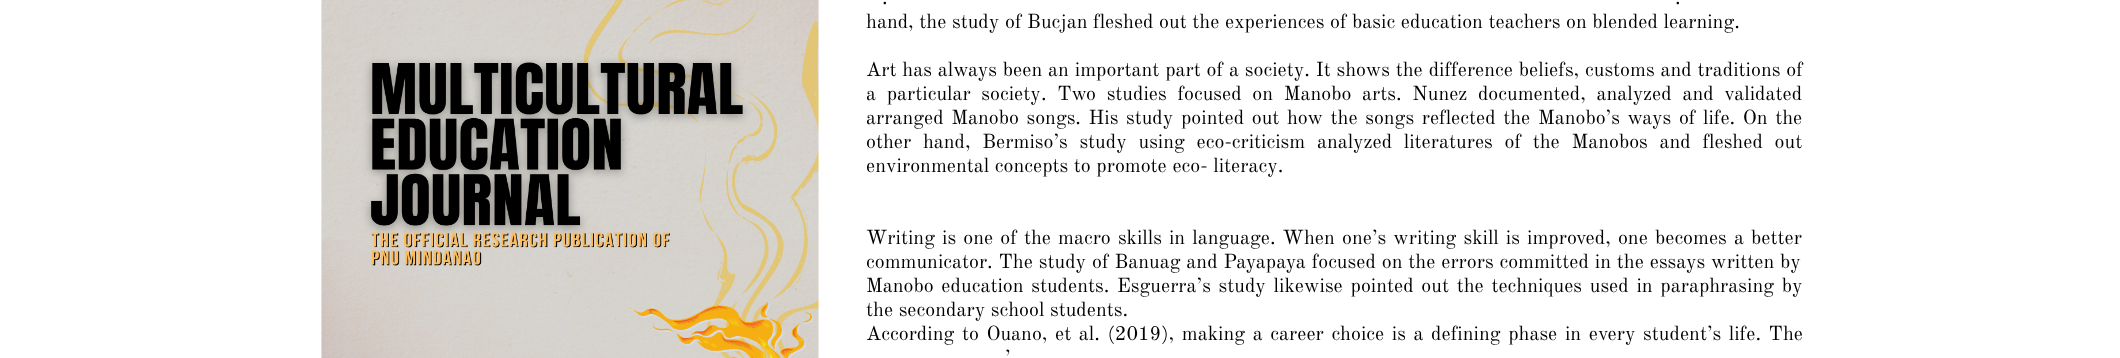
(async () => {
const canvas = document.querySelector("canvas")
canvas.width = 2120
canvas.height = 358
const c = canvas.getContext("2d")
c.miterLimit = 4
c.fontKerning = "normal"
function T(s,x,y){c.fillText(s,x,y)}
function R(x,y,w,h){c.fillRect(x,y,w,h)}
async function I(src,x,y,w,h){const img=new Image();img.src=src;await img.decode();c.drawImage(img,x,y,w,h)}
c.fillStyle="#fff"
R(0,0,2120,358)
await I("1.png",321,0,498,358)
c.wordSpacing="3px"
c.font="20px Old Standard TT"
c.fillStyle="#000"
T(".",882,4)
T(".",1675,4)
c.wordSpacing="0px"
T("hand, the study of Bucjan fleshed out the experiences of basic education teachers on blended learning.",866,28)
c.wordSpacing="0.25px"
T("Art has always been an important part of a society. It shows the difference beliefs, customs and traditions of",866,76)
c.wordSpacing="5.1px"
T("a particular society. Two studies focused on Manobo arts. Nunez documented, analyzed and validated",866,100)
c.wordSpacing="2px"
T("arranged Manobo songs. His study pointed out how the songs reflected the Manobo’s ways of life. On the",866,124)
c.wordSpacing="6.1px"
T("other hand, Bermiso’s study using eco-criticism analyzed literatures of the Manobos and fleshed out",866,148)
c.wordSpacing="0px"
T("environmental concepts to promote eco- literacy.",866,172)
c.wordSpacing="1.5px"
T("Writing is one of the macro skills in language. When one’s writing skill is improved, one becomes a better",866,244)
c.wordSpacing="0.25px"
T("communicator. The study of Banuag and Payapaya focused on the errors committed in the essays written by",866,268)
c.wordSpacing="2.1px"
T("Manobo education students. Esguerra’s study likewise pointed out the techniques used in paraphrasing by",866,292)
c.wordSpacing="0px"
T("the secondary school students.",866,316)
c.wordSpacing="2px"
T("According to Ouano, et al. (2019), making a career choice is a defining phase in every student’s life. The",866,340)
c.wordSpacing="0px"
T("’",1005,364)
})()
